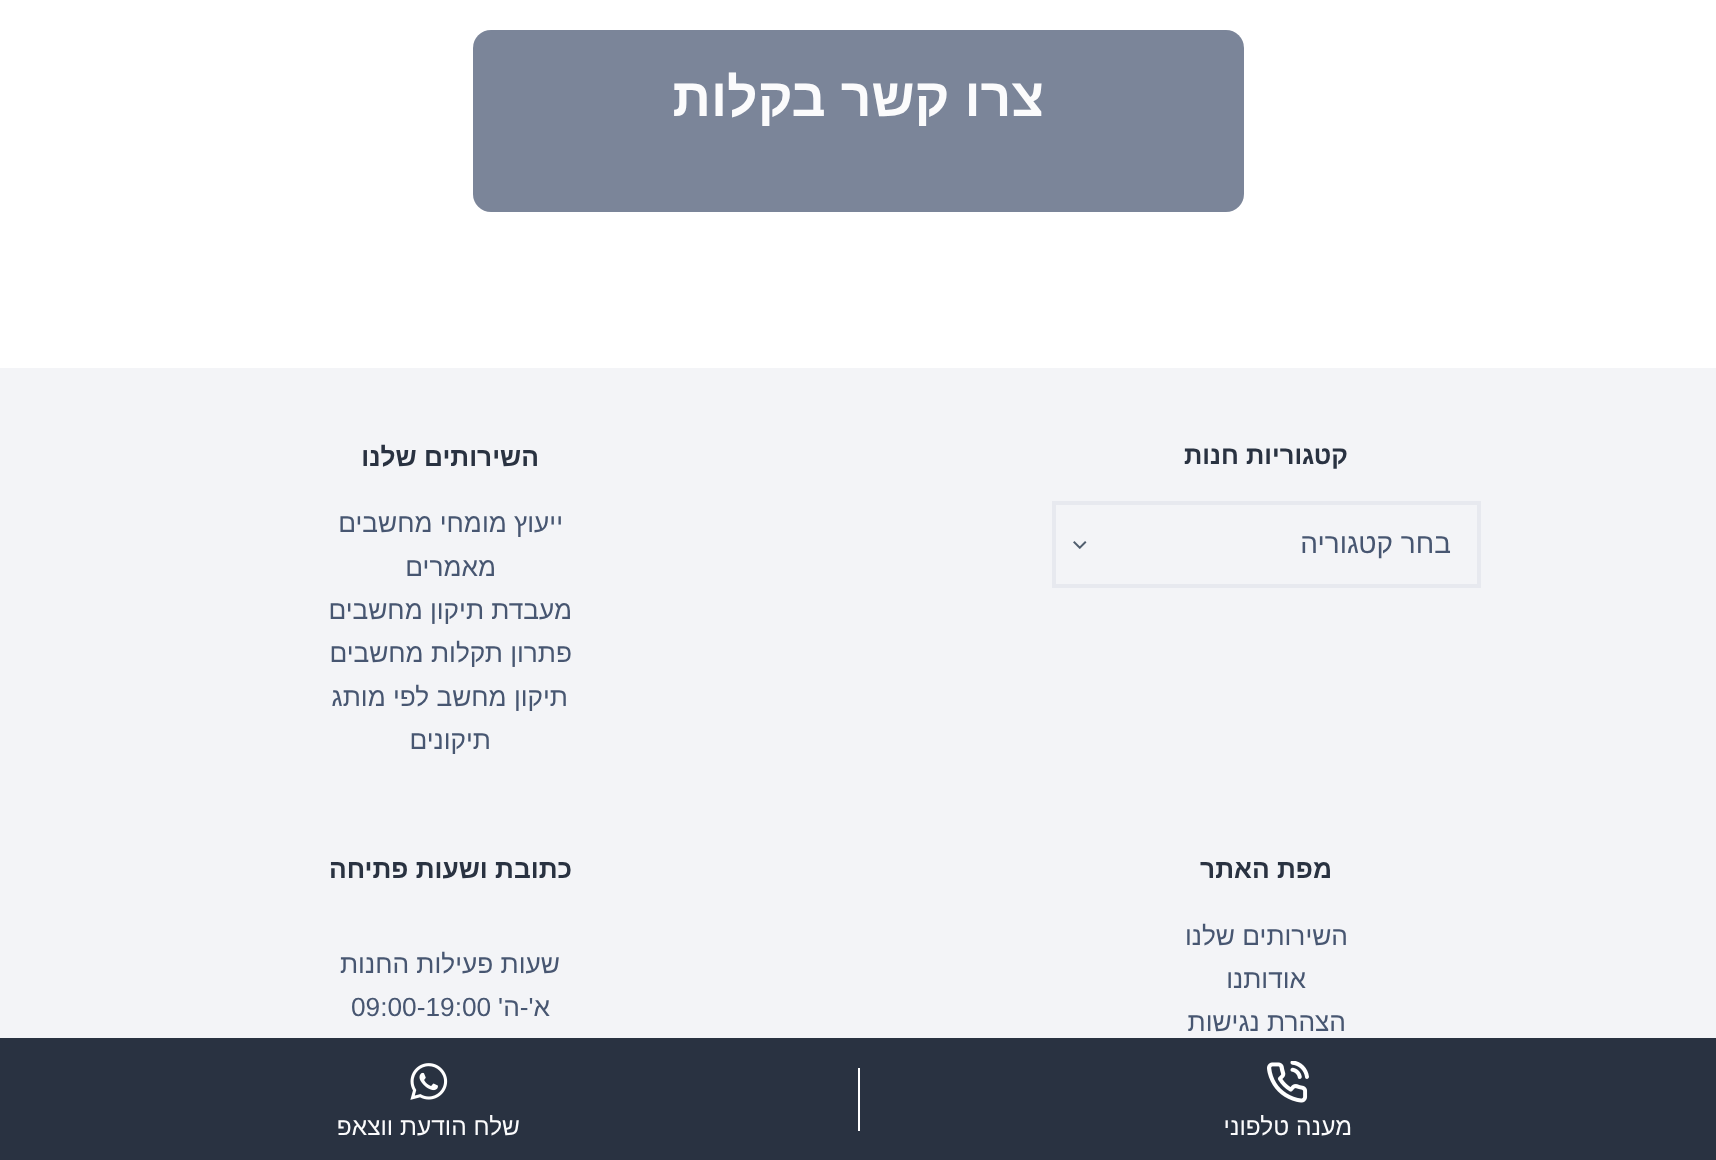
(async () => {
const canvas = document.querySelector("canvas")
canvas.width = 1716
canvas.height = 1160
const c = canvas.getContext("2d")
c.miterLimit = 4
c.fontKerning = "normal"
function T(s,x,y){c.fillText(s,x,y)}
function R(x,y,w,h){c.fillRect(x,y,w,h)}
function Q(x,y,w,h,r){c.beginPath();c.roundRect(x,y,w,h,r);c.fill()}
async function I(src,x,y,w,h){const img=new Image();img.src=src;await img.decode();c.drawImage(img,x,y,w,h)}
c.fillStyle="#f3f4f7"
R(0,0,1716,1160)
c.fillStyle="#fff"
R(0,0,1716,368)
c.fillStyle="#7b8599"
Q(473,30,771,182,18)
c.direction="rtl"
c.font="bold 53.5px Liberation Sans"
c.fillStyle="#fbfbfc"
T("צרו קשר בקלות",1044,116)
c.font="bold 25.5px Liberation Sans"
c.fillStyle="#293241"
T("קטגוריות חנות",1348,464)
await I("1.png",1073,541,14,8)
c.strokeStyle="#e7e9ef"
c.lineWidth=4
c.strokeRect(1054,503,425,83)
c.font="28px Liberation Sans"
c.fillStyle="#475671"
T("בחר קטגוריה",1451,553)
c.font="bold 26.25px Liberation Sans"
c.fillStyle="#293241"
T("השירותים שלנו",539,466)
c.font="26.25px Liberation Sans"
c.fillStyle="#475671"
T("ייעוץ מומחי מחשבים",563,532)
T("מאמרים",496,576)
T("מעבדת תיקון מחשבים",572,619)
T("פתרון תקלות מחשבים",572,662)
T("תיקון מחשב לפי מותג",568,706)
T("תיקונים",491,749)
c.font="bold 26.25px Liberation Sans"
c.fillStyle="#293241"
T("מפת האתר",1332,878)
c.font="26.25px Liberation Sans"
c.fillStyle="#475671"
T("השירותים שלנו",1348,945)
T("אודותנו",1306,988)
T("הצהרת נגישות",1346,1031)
c.font="bold 26.25px Liberation Sans"
c.fillStyle="#293241"
T("כתובת ושעות פתיחה",572,878)
c.font="26.25px Liberation Sans"
c.fillStyle="#475671"
T("שעות פעילות החנות",560,973)
T("א'-ה'",550,1016)
c.direction="ltr"
T("09:00-19:00",351,1016)
c.fillStyle="#293241"
R(0,1038,1716,122)
await I("2.png",1267,1061,42,42)
c.fillStyle="#fff"
R(858,1068,2,63)
c.direction="rtl"
c.font="24.5px Liberation Sans"
c.fillStyle="#fbfbfc"
T("מענה טלפוני",1352,1135)
await I("3.png",410,1063,38,37)
T("שלח הודעת ווצאפ",520,1135)
})()
